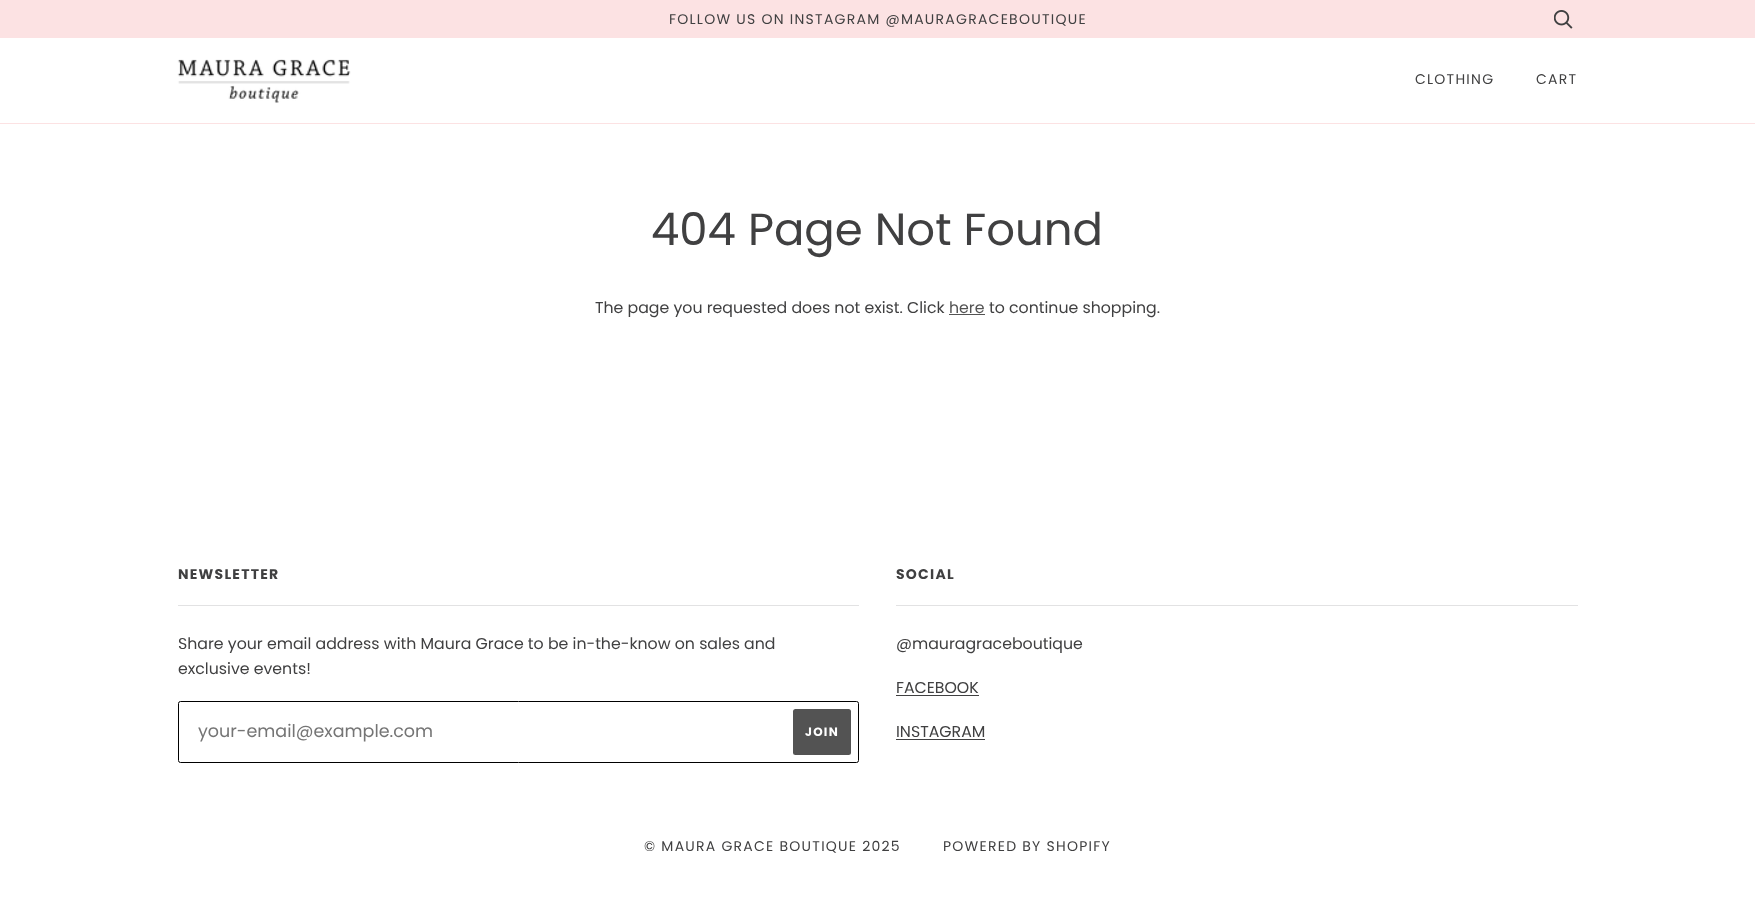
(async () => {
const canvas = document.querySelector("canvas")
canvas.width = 1755
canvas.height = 898
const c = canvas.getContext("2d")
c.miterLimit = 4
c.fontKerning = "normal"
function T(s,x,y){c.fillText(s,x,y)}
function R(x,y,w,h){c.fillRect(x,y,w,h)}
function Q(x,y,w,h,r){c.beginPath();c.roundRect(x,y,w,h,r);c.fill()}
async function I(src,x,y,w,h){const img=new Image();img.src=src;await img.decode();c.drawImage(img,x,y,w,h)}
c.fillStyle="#fff"
R(0,0,1755,898)
c.fillStyle="#fce2e3"
R(0,0,1755,38)
c.letterSpacing="1.25px"
c.font="14px Poppins"
c.fillStyle="#404041"
T("FOLLOW US ON INSTAGRAM @MAURAGRACEBOUTIQUE",669,24)
await I("1.png",1554,10,19,19)
c.fillStyle="#fce2e3"
R(0,123,1755,1)
await I("2.png",177,59,174,44)
c.fillStyle="#404041"
T("CLOTHING",1415,84)
T("CART",1536,84)
c.letterSpacing="0px"
c.font="45px Poppins"
T("404 Page Not Found",651,245)
c.font="15.75px Poppins"
T("The page you requested does not exist. Click",595,313)
c.fillStyle="#535353"
T("here",949,313)
R(949,314,36,1)
c.fillStyle="#404041"
T("to continue shopping.",989,313)
c.letterSpacing="1.25px"
c.font="bold 14px Poppins"
T("NEWSLETTER",178,579)
c.fillStyle="#e2e2e3"
R(178,605,681,1)
c.letterSpacing="0px"
c.font="15.75px Poppins"
c.fillStyle="#404041"
T("Share your email address with Maura Grace to be in-the-know on sales and",178,649)
T("exclusive events!",178,674)
c.beginPath()
c.roundRect(178.5,701.5,680,61,2)
c.strokeStyle="#000"
c.stroke()
c.font="17.5px Poppins"
c.fillStyle="#757575"
T("your-email@example.com",198,737)
c.fillStyle="#535353"
Q(793,709,58,46,2.5)
c.letterSpacing="1.25px"
c.font="bold 12px Poppins"
c.fillStyle="#fff"
T("JOIN",805,736)
c.font="bold 14px Poppins"
c.fillStyle="#404041"
T("SOCIAL",896,579)
c.fillStyle="#e2e2e3"
R(896,605,682,1)
c.letterSpacing="0px"
c.font="15.75px Poppins"
c.fillStyle="#404041"
T("@mauragraceboutique",896,649)
T("FACEBOOK",896,693)
R(896,695,83,1)
T("INSTAGRAM",896,737)
R(896,739,89,1)
c.letterSpacing="1.25px"
c.font="14px Poppins"
T("© MAURA GRACE BOUTIQUE 2025",644,851)
T("POWERED BY SHOPIFY",943,851)
})()
